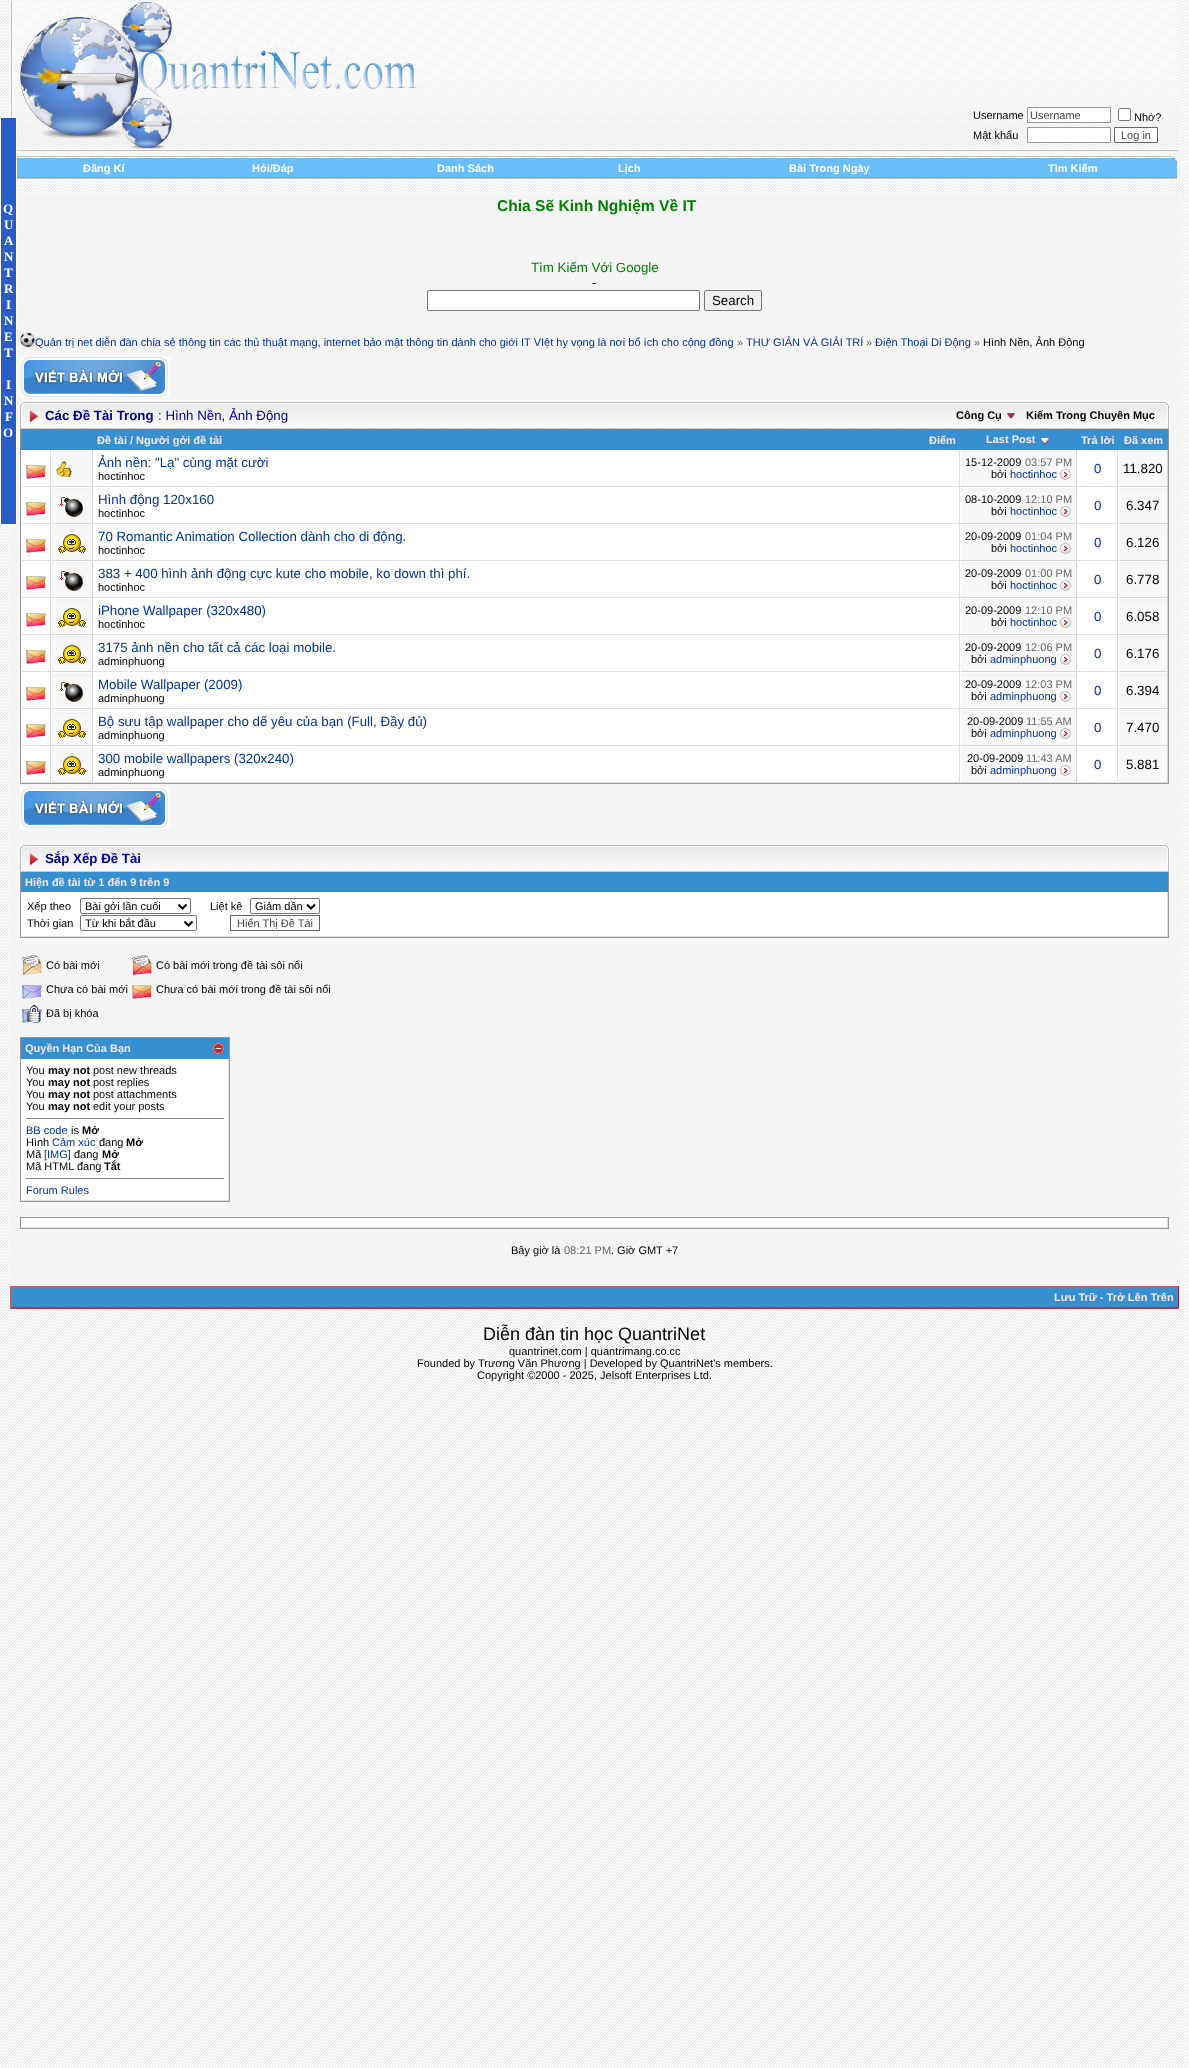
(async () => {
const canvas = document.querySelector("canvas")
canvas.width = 1189
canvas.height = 2068
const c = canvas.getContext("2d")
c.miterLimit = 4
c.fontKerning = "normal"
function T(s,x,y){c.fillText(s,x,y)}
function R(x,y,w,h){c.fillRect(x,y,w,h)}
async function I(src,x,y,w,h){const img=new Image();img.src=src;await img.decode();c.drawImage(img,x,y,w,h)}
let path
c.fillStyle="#fff"
R(0,0,1189,2068)
await I("1.png",0,0,1189,2068)
await I("2.png",13,1,1165,150)
await I("3.png",11,1,9,150)
await I("4.png",20,2,397,147)
c.font="11px Liberation Sans"
c.fillStyle="#000"
T("Username",973,119)
c.fillStyle="#fff"
c.beginPath()
c.rect(1027.5,107.5,83,15)
c.fill()
c.strokeStyle="#989898"
c.stroke()
c.fillStyle="#444"
T("Username",1030,119)
c.fillStyle="#fff"
c.beginPath()
c.roundRect(1118.5,108.5,12,12,1.5)
c.fill()
c.strokeStyle="#767676"
c.stroke()
c.fillStyle="#000"
T("Nhớ?",1134,121)
T("Mật khẩu",973,139)
c.fillStyle="#fff"
c.beginPath()
c.rect(1027.5,127.5,83,15)
c.fill()
c.strokeStyle="#989898"
c.stroke()
c.beginPath()
c.rect(1114.5,127.5,43,15)
c.fill()
c.strokeStyle="#666"
c.stroke()
c.fillStyle="#444"
T("Log in",1121,139)
await I("5.png",17,156,2,2)
await I("6.png",19,156,1151,2)
await I("7.png",1170,156,5,2)
await I("8.png",17,158,2,21)
await I("9.png",19,158,169,21)
c.font="bold 11px Liberation Sans"
c.fillStyle="#fff"
T("Đăng Kí",83,172)
await I("9.png",188,158,169,21)
T("Hỏi/Đáp",252,172)
await I("10.png",357,158,217,21)
T("Danh Sách",437,172)
await I("11.png",574,158,109,21)
T("Lịch",618,172)
await I("12.png",683,158,293,21)
T("Bài Trong Ngày",789,172)
await I("13.png",976,158,194,21)
T("Tìm Kiếm",1048,172)
await I("14.png",1170,158,9,21)
c.fillStyle="#f5f5f5"
R(10,195,1169,1091)
c.fillStyle="#fff"
R(0,117,17,408)
c.fillStyle="#295dc6"
R(1,118,15,406)
c.font="bold 13px Liberation Serif"
c.fillStyle="#fff"
T("Q",3,213)
T("U",4,229)
T("A",4,245)
T("N",4,261)
T("T",4,277)
T("R",4,293)
T("I",6,309)
T("N",4,325)
T("E",4,341)
T("T",4,357)
T("I",6,389)
T("N",4,405)
T("F",5,421)
T("O",3,437)
c.font="bold 15.6px Liberation Sans"
c.fillStyle="#008000"
T("Chia Sẽ Kinh Nghiệm Về IT",497,211)
c.font="13.3px Liberation Sans"
T("Tìm Kiếm Với Google",531,272)
c.fillStyle="#000"
T("-",592,287)
c.fillStyle="#fff"
c.beginPath()
c.roundRect(427.5,290.5,272,20,1.5)
c.fill()
c.strokeStyle="#767676"
c.stroke()
c.fillStyle="#efefef"
c.beginPath()
c.roundRect(704.5,290.5,57,20,1.5)
c.fill()
c.stroke()
c.fillStyle="#000"
T("Search",712,305)
await I("15.png",20,333,15,14)
c.font="11px Liberation Sans"
c.fillStyle="#039"
T("Quản trị net diễn đàn chia sẻ thông tin các thủ thuật mạng, internet bảo mật thông tin dành cho giới IT VIệt hy vọng là nơi bổ ích cho cộng đồng",35,346)
c.fillStyle="#666"
T("»",737,346)
c.fillStyle="#039"
T("THƯ GIẢN VÀ GIẢI TRÍ",746,346)
c.fillStyle="#666"
T("»",866,346)
c.fillStyle="#039"
T("Điện Thoại Di Động",875,346)
c.fillStyle="#666"
T("»",974,346)
c.fillStyle="#000"
T("Hình Nền, Ảnh Động",983,346)
await I("16.png",20,356,150,42)
await I("17.png",21,402,1147,27)
await I("18.png",20,402,19,27)
c.font="bold 13.3px Liberation Sans"
c.fillStyle="#009"
T("Các Đề Tài Trong",45,420)
c.font="13.3px Liberation Sans"
T(": Hình Nền, Ảnh Động",158,420)
c.font="bold 11px Liberation Sans"
c.fillStyle="#000"
T("Công Cụ",956,419)
await I("19.png",1007,413,8,6)
T("Kiếm Trong Chuyên Mục",1026,419)
await I("20.png",1164,402,5,27)
c.fillStyle="#368fce"
R(21,429,1147,21)
c.fillStyle="#989898"
R(1168,429,1,355)
R(20,783,1149,1)
R(20,429,1,355)
c.fillStyle="#f7e6e9"
T("Ðề tài / Người gởi đề tải",97,444)
T("Điểm",929,444)
T("Last Post",986,443)
await I("21.png",1041,438,8,6)
T("Trả lời",1081,444)
T("Đã xem",1124,444)
c.fillStyle="#fff"
R(22,450,28,36)
c.fillStyle="#e0e0e0"
R(50,450,1,333)
R(21,486,30,1)
c.fillStyle="#fff"
R(21,450,1,37)
await I("22.png",26,465,20,14)
c.fillStyle="#f8f8f8"
R(52,455,40,31)
c.fillStyle="#fff"
R(51,450,42,1)
c.fillStyle="#d7d7d7"
R(92,450,1,37)
R(51,486,42,1)
c.fillStyle="#fff"
R(51,450,1,37)
await I("23.png",56,461,16,16)
R(94,450,865,36)
c.fillStyle="#e0e0e0"
R(959,450,1,333)
R(93,486,867,1)
c.fillStyle="#fff"
R(93,450,1,37)
c.font="13.3px Liberation Sans"
c.fillStyle="#039"
T("Ảnh nền: \"Lạ\" cùng mặt cười",98,467)
c.font="11px Liberation Sans"
c.fillStyle="#000"
T("hoctinhoc",98,480)
c.fillStyle="#f8f8f8"
R(961,455,115,31)
c.fillStyle="#fff"
R(960,450,117,1)
c.fillStyle="#d7d7d7"
R(1076,450,1,37)
R(960,486,117,1)
c.fillStyle="#fff"
R(960,450,1,37)
c.fillStyle="#000"
T("15-12-2009",965,466)
c.fillStyle="#666"
T("03:57 PM",1025,466)
c.fillStyle="#000"
T("bởi",991,478)
c.fillStyle="#039"
T("hoctinhoc",1010,478)
await I("24.png",1060,469,11,11)
c.fillStyle="#fff"
R(1078,450,39,36)
c.fillStyle="#e0e0e0"
R(1117,450,1,333)
R(1077,486,41,1)
c.fillStyle="#fff"
R(1077,450,1,37)
c.font="13.3px Liberation Sans"
c.fillStyle="#039"
T("0",1094,473)
c.fillStyle="#f8f8f8"
R(1119,455,48,31)
c.fillStyle="#fff"
R(1118,450,50,1)
c.fillStyle="#d7d7d7"
R(1167,450,1,37)
R(1118,486,50,1)
c.fillStyle="#fff"
R(1118,450,1,37)
c.fillStyle="#000"
T("11.820",1123,473)
c.fillStyle="#fff"
R(22,487,28,36)
c.fillStyle="#e0e0e0"
R(21,523,30,1)
c.fillStyle="#fff"
R(21,487,1,37)
await I("22.png",26,502,20,14)
c.fillStyle="#f8f8f8"
R(52,492,40,31)
c.fillStyle="#fff"
R(51,487,42,1)
c.fillStyle="#d7d7d7"
R(92,487,1,37)
R(51,523,42,1)
c.fillStyle="#fff"
R(51,487,1,37)
await I("25.png",60,497,23,20)
R(94,487,865,36)
c.fillStyle="#e0e0e0"
R(93,523,867,1)
c.fillStyle="#fff"
R(93,487,1,37)
c.fillStyle="#039"
T("Hình động 120x160",98,504)
c.font="11px Liberation Sans"
c.fillStyle="#000"
T("hoctinhoc",98,517)
c.fillStyle="#f8f8f8"
R(961,492,115,31)
c.fillStyle="#fff"
R(960,487,117,1)
c.fillStyle="#d7d7d7"
R(1076,487,1,37)
R(960,523,117,1)
c.fillStyle="#fff"
R(960,487,1,37)
c.fillStyle="#000"
T("08-10-2009",965,503)
c.fillStyle="#666"
T("12:10 PM",1025,503)
c.fillStyle="#000"
T("bởi",991,515)
c.fillStyle="#039"
T("hoctinhoc",1010,515)
await I("24.png",1060,506,11,11)
c.fillStyle="#fff"
R(1078,487,39,36)
c.fillStyle="#e0e0e0"
R(1077,523,41,1)
c.fillStyle="#fff"
R(1077,487,1,37)
c.font="13.3px Liberation Sans"
c.fillStyle="#039"
T("0",1094,510)
c.fillStyle="#f8f8f8"
R(1119,492,48,31)
c.fillStyle="#fff"
R(1118,487,50,1)
c.fillStyle="#d7d7d7"
R(1167,487,1,37)
R(1118,523,50,1)
c.fillStyle="#fff"
R(1118,487,1,37)
c.fillStyle="#000"
T("6.347",1126,510)
c.fillStyle="#fff"
R(22,524,28,36)
c.fillStyle="#e0e0e0"
R(21,560,30,1)
c.fillStyle="#fff"
R(21,524,1,37)
await I("22.png",26,539,20,14)
c.fillStyle="#f8f8f8"
R(52,529,40,31)
c.fillStyle="#fff"
R(51,524,42,1)
c.fillStyle="#d7d7d7"
R(92,524,1,37)
R(51,560,42,1)
c.fillStyle="#fff"
R(51,524,1,37)
await I("26.png",58,534,28,19)
R(94,524,865,36)
c.fillStyle="#e0e0e0"
R(93,560,867,1)
c.fillStyle="#fff"
R(93,524,1,37)
c.fillStyle="#039"
T("70 Romantic Animation Collection dành cho di động.",98,541)
c.font="11px Liberation Sans"
c.fillStyle="#000"
T("hoctinhoc",98,554)
c.fillStyle="#f8f8f8"
R(961,529,115,31)
c.fillStyle="#fff"
R(960,524,117,1)
c.fillStyle="#d7d7d7"
R(1076,524,1,37)
R(960,560,117,1)
c.fillStyle="#fff"
R(960,524,1,37)
c.fillStyle="#000"
T("20-09-2009",965,540)
c.fillStyle="#666"
T("01:04 PM",1025,540)
c.fillStyle="#000"
T("bởi",991,552)
c.fillStyle="#039"
T("hoctinhoc",1010,552)
await I("24.png",1060,543,11,11)
c.fillStyle="#fff"
R(1078,524,39,36)
c.fillStyle="#e0e0e0"
R(1077,560,41,1)
c.fillStyle="#fff"
R(1077,524,1,37)
c.font="13.3px Liberation Sans"
c.fillStyle="#039"
T("0",1094,547)
c.fillStyle="#f8f8f8"
R(1119,529,48,31)
c.fillStyle="#fff"
R(1118,524,50,1)
c.fillStyle="#d7d7d7"
R(1167,524,1,37)
R(1118,560,50,1)
c.fillStyle="#fff"
R(1118,524,1,37)
c.fillStyle="#000"
T("6.126",1126,547)
c.fillStyle="#fff"
R(22,561,28,36)
c.fillStyle="#e0e0e0"
R(21,597,30,1)
c.fillStyle="#fff"
R(21,561,1,37)
await I("22.png",26,576,20,14)
c.fillStyle="#f8f8f8"
R(52,566,40,31)
c.fillStyle="#fff"
R(51,561,42,1)
c.fillStyle="#d7d7d7"
R(92,561,1,37)
R(51,597,42,1)
c.fillStyle="#fff"
R(51,561,1,37)
await I("25.png",60,571,23,20)
R(94,561,865,36)
c.fillStyle="#e0e0e0"
R(93,597,867,1)
c.fillStyle="#fff"
R(93,561,1,37)
c.fillStyle="#039"
T("383 + 400 hình ảnh động cực kute cho mobile, ko down thì phí.",98,578)
c.font="11px Liberation Sans"
c.fillStyle="#000"
T("hoctinhoc",98,591)
c.fillStyle="#f8f8f8"
R(961,566,115,31)
c.fillStyle="#fff"
R(960,561,117,1)
c.fillStyle="#d7d7d7"
R(1076,561,1,37)
R(960,597,117,1)
c.fillStyle="#fff"
R(960,561,1,37)
c.fillStyle="#000"
T("20-09-2009",965,577)
c.fillStyle="#666"
T("01:00 PM",1025,577)
c.fillStyle="#000"
T("bởi",991,589)
c.fillStyle="#039"
T("hoctinhoc",1010,589)
await I("24.png",1060,580,11,11)
c.fillStyle="#fff"
R(1078,561,39,36)
c.fillStyle="#e0e0e0"
R(1077,597,41,1)
c.fillStyle="#fff"
R(1077,561,1,37)
c.font="13.3px Liberation Sans"
c.fillStyle="#039"
T("0",1094,584)
c.fillStyle="#f8f8f8"
R(1119,566,48,31)
c.fillStyle="#fff"
R(1118,561,50,1)
c.fillStyle="#d7d7d7"
R(1167,561,1,37)
R(1118,597,50,1)
c.fillStyle="#fff"
R(1118,561,1,37)
c.fillStyle="#000"
T("6.778",1126,584)
c.fillStyle="#fff"
R(22,598,28,36)
c.fillStyle="#e0e0e0"
R(21,634,30,1)
c.fillStyle="#fff"
R(21,598,1,37)
await I("22.png",26,613,20,14)
c.fillStyle="#f8f8f8"
R(52,603,40,31)
c.fillStyle="#fff"
R(51,598,42,1)
c.fillStyle="#d7d7d7"
R(92,598,1,37)
R(51,634,42,1)
c.fillStyle="#fff"
R(51,598,1,37)
await I("26.png",58,608,28,19)
R(94,598,865,36)
c.fillStyle="#e0e0e0"
R(93,634,867,1)
c.fillStyle="#fff"
R(93,598,1,37)
c.fillStyle="#039"
T("iPhone Wallpaper (320x480)",98,615)
c.font="11px Liberation Sans"
c.fillStyle="#000"
T("hoctinhoc",98,628)
c.fillStyle="#f8f8f8"
R(961,603,115,31)
c.fillStyle="#fff"
R(960,598,117,1)
c.fillStyle="#d7d7d7"
R(1076,598,1,37)
R(960,634,117,1)
c.fillStyle="#fff"
R(960,598,1,37)
c.fillStyle="#000"
T("20-09-2009",965,614)
c.fillStyle="#666"
T("12:10 PM",1025,614)
c.fillStyle="#000"
T("bởi",991,626)
c.fillStyle="#039"
T("hoctinhoc",1010,626)
await I("24.png",1060,617,11,11)
c.fillStyle="#fff"
R(1078,598,39,36)
c.fillStyle="#e0e0e0"
R(1077,634,41,1)
c.fillStyle="#fff"
R(1077,598,1,37)
c.font="13.3px Liberation Sans"
c.fillStyle="#039"
T("0",1094,621)
c.fillStyle="#f8f8f8"
R(1119,603,48,31)
c.fillStyle="#fff"
R(1118,598,50,1)
c.fillStyle="#d7d7d7"
R(1167,598,1,37)
R(1118,634,50,1)
c.fillStyle="#fff"
R(1118,598,1,37)
c.fillStyle="#000"
T("6.058",1126,621)
c.fillStyle="#fff"
R(22,635,28,36)
c.fillStyle="#e0e0e0"
R(21,671,30,1)
c.fillStyle="#fff"
R(21,635,1,37)
await I("22.png",26,650,20,14)
c.fillStyle="#f8f8f8"
R(52,640,40,31)
c.fillStyle="#fff"
R(51,635,42,1)
c.fillStyle="#d7d7d7"
R(92,635,1,37)
R(51,671,42,1)
c.fillStyle="#fff"
R(51,635,1,37)
await I("26.png",58,645,28,19)
R(94,635,865,36)
c.fillStyle="#e0e0e0"
R(93,671,867,1)
c.fillStyle="#fff"
R(93,635,1,37)
c.fillStyle="#039"
T("3175 ảnh nền cho tất cả các loại mobile.",98,652)
c.font="11px Liberation Sans"
c.fillStyle="#000"
T("adminphuong",98,665)
c.fillStyle="#f8f8f8"
R(961,640,115,31)
c.fillStyle="#fff"
R(960,635,117,1)
c.fillStyle="#d7d7d7"
R(1076,635,1,37)
R(960,671,117,1)
c.fillStyle="#fff"
R(960,635,1,37)
c.fillStyle="#000"
T("20-09-2009",965,651)
c.fillStyle="#666"
T("12:06 PM",1025,651)
c.fillStyle="#000"
T("bởi",971,663)
c.fillStyle="#039"
T("adminphuong",990,663)
await I("24.png",1060,654,11,11)
c.fillStyle="#fff"
R(1078,635,39,36)
c.fillStyle="#e0e0e0"
R(1077,671,41,1)
c.fillStyle="#fff"
R(1077,635,1,37)
c.font="13.3px Liberation Sans"
c.fillStyle="#039"
T("0",1094,658)
c.fillStyle="#f8f8f8"
R(1119,640,48,31)
c.fillStyle="#fff"
R(1118,635,50,1)
c.fillStyle="#d7d7d7"
R(1167,635,1,37)
R(1118,671,50,1)
c.fillStyle="#fff"
R(1118,635,1,37)
c.fillStyle="#000"
T("6.176",1126,658)
c.fillStyle="#fff"
R(22,672,28,36)
c.fillStyle="#e0e0e0"
R(21,708,30,1)
c.fillStyle="#fff"
R(21,672,1,37)
await I("22.png",26,687,20,14)
c.fillStyle="#f8f8f8"
R(52,677,40,31)
c.fillStyle="#fff"
R(51,672,42,1)
c.fillStyle="#d7d7d7"
R(92,672,1,37)
R(51,708,42,1)
c.fillStyle="#fff"
R(51,672,1,37)
await I("25.png",60,682,23,20)
R(94,672,865,36)
c.fillStyle="#e0e0e0"
R(93,708,867,1)
c.fillStyle="#fff"
R(93,672,1,37)
c.fillStyle="#039"
T("Mobile Wallpaper (2009)",98,689)
c.font="11px Liberation Sans"
c.fillStyle="#000"
T("adminphuong",98,702)
c.fillStyle="#f8f8f8"
R(961,677,115,31)
c.fillStyle="#fff"
R(960,672,117,1)
c.fillStyle="#d7d7d7"
R(1076,672,1,37)
R(960,708,117,1)
c.fillStyle="#fff"
R(960,672,1,37)
c.fillStyle="#000"
T("20-09-2009",965,688)
c.fillStyle="#666"
T("12:03 PM",1025,688)
c.fillStyle="#000"
T("bởi",971,700)
c.fillStyle="#039"
T("adminphuong",990,700)
await I("24.png",1060,691,11,11)
c.fillStyle="#fff"
R(1078,672,39,36)
c.fillStyle="#e0e0e0"
R(1077,708,41,1)
c.fillStyle="#fff"
R(1077,672,1,37)
c.font="13.3px Liberation Sans"
c.fillStyle="#039"
T("0",1094,695)
c.fillStyle="#f8f8f8"
R(1119,677,48,31)
c.fillStyle="#fff"
R(1118,672,50,1)
c.fillStyle="#d7d7d7"
R(1167,672,1,37)
R(1118,708,50,1)
c.fillStyle="#fff"
R(1118,672,1,37)
c.fillStyle="#000"
T("6.394",1126,695)
c.fillStyle="#fff"
R(22,709,28,36)
c.fillStyle="#e0e0e0"
R(21,745,30,1)
c.fillStyle="#fff"
R(21,709,1,37)
await I("22.png",26,724,20,14)
c.fillStyle="#f8f8f8"
R(52,714,40,31)
c.fillStyle="#fff"
R(51,709,42,1)
c.fillStyle="#d7d7d7"
R(92,709,1,37)
R(51,745,42,1)
c.fillStyle="#fff"
R(51,709,1,37)
await I("26.png",58,719,28,19)
R(94,709,865,36)
c.fillStyle="#e0e0e0"
R(93,745,867,1)
c.fillStyle="#fff"
R(93,709,1,37)
c.fillStyle="#039"
T("Bộ sưu tập wallpaper cho dế yêu của bạn (Full, Đầy đủ)",98,726)
c.font="11px Liberation Sans"
c.fillStyle="#000"
T("adminphuong",98,739)
c.fillStyle="#f8f8f8"
R(961,714,115,31)
c.fillStyle="#fff"
R(960,709,117,1)
c.fillStyle="#d7d7d7"
R(1076,709,1,37)
R(960,745,117,1)
c.fillStyle="#fff"
R(960,709,1,37)
c.fillStyle="#000"
T("20-09-2009",967,725)
c.fillStyle="#666"
T("11:55 AM",1026,725)
c.fillStyle="#000"
T("bởi",971,737)
c.fillStyle="#039"
T("adminphuong",990,737)
await I("24.png",1060,728,11,11)
c.fillStyle="#fff"
R(1078,709,39,36)
c.fillStyle="#e0e0e0"
R(1077,745,41,1)
c.fillStyle="#fff"
R(1077,709,1,37)
c.font="13.3px Liberation Sans"
c.fillStyle="#039"
T("0",1094,732)
c.fillStyle="#f8f8f8"
R(1119,714,48,31)
c.fillStyle="#fff"
R(1118,709,50,1)
c.fillStyle="#d7d7d7"
R(1167,709,1,37)
R(1118,745,50,1)
c.fillStyle="#fff"
R(1118,709,1,37)
c.fillStyle="#000"
T("7.470",1126,732)
c.fillStyle="#fff"
R(22,746,28,36)
c.fillStyle="#e0e0e0"
R(21,782,30,1)
c.fillStyle="#fff"
R(21,746,1,37)
await I("22.png",26,761,20,14)
c.fillStyle="#f8f8f8"
R(52,751,40,31)
c.fillStyle="#fff"
R(51,746,42,1)
c.fillStyle="#d7d7d7"
R(92,746,1,37)
R(51,782,42,1)
c.fillStyle="#fff"
R(51,746,1,37)
await I("26.png",58,756,28,19)
R(94,746,865,36)
c.fillStyle="#e0e0e0"
R(93,782,867,1)
c.fillStyle="#fff"
R(93,746,1,37)
c.fillStyle="#039"
T("300 mobile wallpapers (320х240)",98,763)
c.font="11px Liberation Sans"
c.fillStyle="#000"
T("adminphuong",98,776)
c.fillStyle="#f8f8f8"
R(961,751,115,31)
c.fillStyle="#fff"
R(960,746,117,1)
c.fillStyle="#d7d7d7"
R(1076,746,1,37)
R(960,782,117,1)
c.fillStyle="#fff"
R(960,746,1,37)
c.fillStyle="#000"
T("20-09-2009",967,762)
c.fillStyle="#666"
T("11:43 AM",1026,762)
c.fillStyle="#000"
T("bởi",971,774)
c.fillStyle="#039"
T("adminphuong",990,774)
await I("24.png",1060,765,11,11)
c.fillStyle="#fff"
R(1078,746,39,36)
c.fillStyle="#e0e0e0"
R(1077,782,41,1)
c.fillStyle="#fff"
R(1077,746,1,37)
c.font="13.3px Liberation Sans"
c.fillStyle="#039"
T("0",1094,769)
c.fillStyle="#f8f8f8"
R(1119,751,48,31)
c.fillStyle="#fff"
R(1118,746,50,1)
c.fillStyle="#d7d7d7"
R(1167,746,1,37)
R(1118,782,50,1)
c.fillStyle="#fff"
R(1118,746,1,37)
c.fillStyle="#000"
T("5.881",1126,769)
await I("16.png",20,787,150,42)
await I("17.png",21,845,1147,27)
await I("18.png",20,845,19,27)
c.font="bold 13.3px Liberation Sans"
c.fillStyle="#009"
T("Sắp Xếp Đề Tài",45,863)
await I("20.png",1164,845,5,27)
c.fillStyle="#368fce"
R(21,872,1147,20)
c.fillStyle="#989898"
R(1168,872,1,66)
R(20,937,1149,1)
R(20,872,1,66)
c.font="bold 11px Liberation Sans"
c.fillStyle="#f7e6e9"
T("Hiện đề tài từ 1 đến 9 trên 9",25,886)
c.fillStyle="#fff"
R(22,892,1145,44)
c.fillStyle="#e0e0e0"
R(1167,892,1,45)
R(21,936,1147,1)
c.fillStyle="#fff"
R(21,892,1,45)
c.font="11px Liberation Sans"
c.fillStyle="#000"
T("Xếp theo",27,910)
c.beginPath()
c.roundRect(80.5,898.5,110,15,1.5)
c.stroke()
path = new Path2D("M178.5 904.5l4 4l4-4")
c.strokeStyle="#000"
c.lineWidth=2
c.stroke(path)
T("Bài gởi lần cuối",85,910)
T("Liệt kê",210,910)
c.beginPath()
c.roundRect(250.5,898.5,69,15,1.5)
c.strokeStyle="#767676"
c.lineWidth=1
c.stroke()
path = new Path2D("M307 904.5l4 4l4-4")
c.strokeStyle="#000"
c.lineWidth=2
c.stroke(path)
T("Giảm dần",255,910)
T("Thời gian",27,927)
c.beginPath()
c.roundRect(80.5,915.5,116,15,1.5)
c.strokeStyle="#767676"
c.lineWidth=1
c.stroke()
path = new Path2D("M184.5 921.5l4 4l4-4")
c.strokeStyle="#000"
c.lineWidth=2
c.stroke(path)
T("Từ khi bắt đầu",85,927)
c.strokeStyle="#666"
c.lineWidth=1
c.strokeRect(230.5,915.5,89,15)
c.fillStyle="#444"
T("Hiển Thị Đề Tài",237,927)
await I("27.png",22,955,20,20)
c.fillStyle="#000"
T("Có bài mới",46,969)
await I("28.png",132,955,20,20)
T("Có bài mới trong đề tài sôi nổi",156,969)
await I("29.png",22,985,20,14)
T("Chưa có bài mới",46,993)
await I("30.png",132,985,20,14)
T("Chưa có bài mới trong đề tài sôi nổi",156,993)
await I("31.png",22,1005,20,18)
T("Đã bị khóa",46,1017)
c.fillStyle="#368fce"
R(21,1038,208,21)
c.strokeStyle="#989898"
c.strokeRect(20.5,1037.5,209,164)
c.font="bold 11px Liberation Sans"
c.fillStyle="#f7e6e9"
T("Quyền Hạn Của Bạn",25,1052)
await I("32.png",213,1043,11,11)
c.fillStyle="#fff"
R(22,1059,206,141)
c.fillStyle="#e0e0e0"
R(228,1059,1,142)
R(21,1200,208,1)
c.fillStyle="#fff"
R(21,1059,1,142)
c.font="11px Liberation Sans"
c.fillStyle="#000"
T("You",26,1074)
c.font="bold 11px Liberation Sans"
T("may not",48,1074)
c.font="11px Liberation Sans"
T("post new threads",93,1074)
T("You",26,1086)
c.font="bold 11px Liberation Sans"
T("may not",48,1086)
c.font="11px Liberation Sans"
T("post replies",93,1086)
T("You",26,1098)
c.font="bold 11px Liberation Sans"
T("may not",48,1098)
c.font="11px Liberation Sans"
T("post attachments",93,1098)
T("You",26,1110)
c.font="bold 11px Liberation Sans"
T("may not",48,1110)
c.font="11px Liberation Sans"
T("edit your posts",93,1110)
c.fillStyle="#888"
R(26,1118,198,1)
c.fillStyle="#039"
T("BB code",26,1134)
c.fillStyle="#000"
T("is",71,1134)
c.font="bold 11px Liberation Sans"
T("Mở",82,1134)
c.font="11px Liberation Sans"
T("Hình",26,1146)
c.fillStyle="#039"
T("Cảm xúc",52,1146)
c.fillStyle="#000"
T("đang",99,1146)
c.font="bold 11px Liberation Sans"
T("Mở",126,1146)
c.font="11px Liberation Sans"
T("Mã",26,1158)
c.fillStyle="#039"
T("[IMG]",44,1158)
c.fillStyle="#000"
T("đang",74,1158)
c.font="bold 11px Liberation Sans"
T("Mở",102,1158)
c.font="11px Liberation Sans"
T("Mã HTML đang",26,1170)
c.font="bold 11px Liberation Sans"
T("Tắt",104,1170)
c.fillStyle="#888"
R(26,1178,198,1)
c.font="11px Liberation Sans"
c.fillStyle="#039"
T("Forum Rules",26,1194)
c.strokeRect(20.5,1217.5,1148,11)
c.fillStyle="#fff"
R(22,1218,1145,9)
c.fillStyle="#e0e0e0"
R(1167,1218,1,10)
R(21,1227,1147,1)
c.fillStyle="#fff"
R(21,1218,1,10)
c.fillStyle="#000"
T("Bây giờ là",511,1254)
c.fillStyle="#666"
T("08:21 PM",564,1254)
c.fillStyle="#000"
T(". Giờ GMT +7",611,1254)
c.fillStyle="#368fce"
R(11,1287,1167,20)
c.fillStyle="#d25a69"
R(10,1286,1169,1)
c.fillStyle="#a72431"
path = new Path2D("M1179 1286v23l-1-2v-20z")
c.fill(path)
c.fillStyle="#bb313f"
path = new Path2D("M1179 1309h-1169l1-2h1167z")
c.fill(path)
c.fillStyle="#d25a69"
path = new Path2D("M10 1309v-23l1 1v20z")
c.fill(path)
c.font="bold 11px Liberation Sans"
c.fillStyle="#f7e6e9"
T("Lưu Trữ - Trở Lên Trên",1054,1301)
c.font="18px Liberation Sans"
c.fillStyle="#000"
T("Diễn đàn tin học QuantriNet",483,1340)
c.font="11px Liberation Sans"
T("quantrinet.com | quantrimang.co.cc",509,1355)
T("Founded by Trương Văn Phương | Developed by QuantriNet's members.",417,1367)
T("Copyright ©2000 - 2025, Jelsoft Enterprises Ltd.",477,1379)
})()
